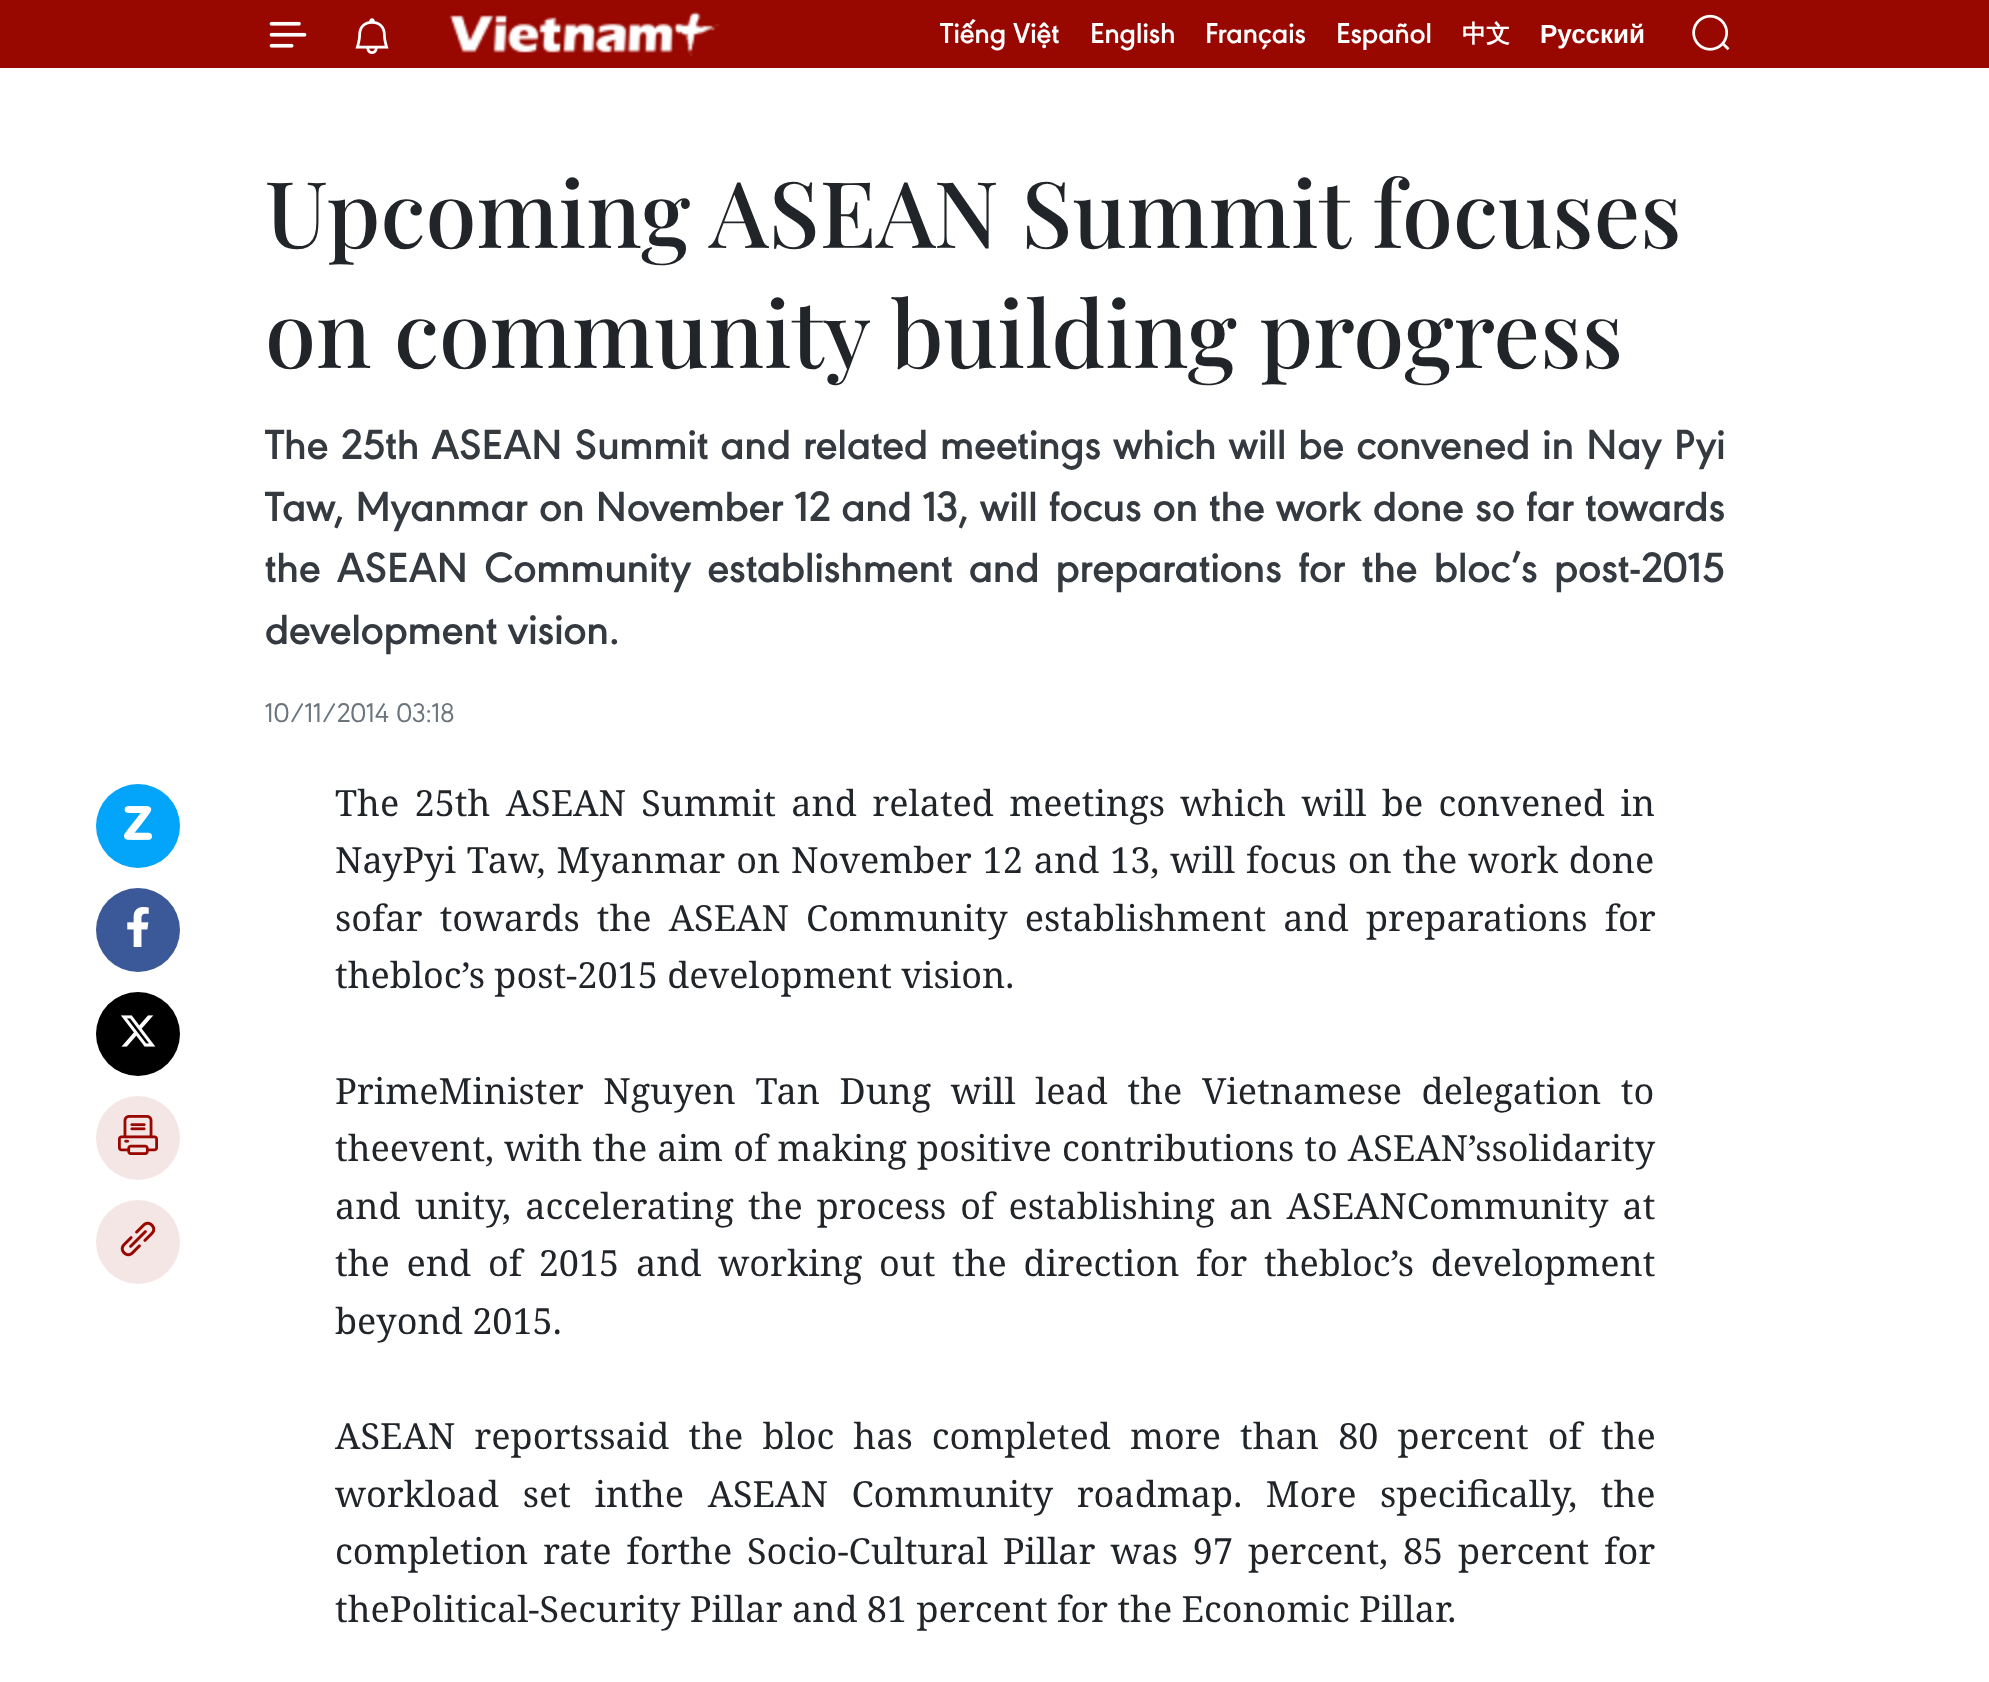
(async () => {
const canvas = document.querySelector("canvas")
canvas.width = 1989
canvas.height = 1682
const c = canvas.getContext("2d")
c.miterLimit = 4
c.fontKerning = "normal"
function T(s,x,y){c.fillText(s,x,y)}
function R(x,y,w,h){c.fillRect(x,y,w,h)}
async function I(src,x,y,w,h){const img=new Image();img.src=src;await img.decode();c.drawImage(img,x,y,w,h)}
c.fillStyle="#fff"
R(0,0,1989,1682)
c.fillStyle="#980700"
R(0,0,1989,68)
await I("1.png",269,21,38,27)
await I("2.png",355,18,34,36)
await I("3.png",449,11,271,46)
c.font="600 30px 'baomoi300'"
c.fillStyle="#fff"
T("Tiếng Việt",940,43)
T("English",1090,43)
T("Français",1205,43)
T("Español",1336,43)
c.font="bold 24px WenQuanYi Zen Hei"
T("中文",1462,42)
c.font="bold 26px Liberation Sans"
T("Русский",1540,43)
await I("4.png",1692,14,38,37)
c.font="500 92px Playfair Display"
c.fillStyle="#212529"
T("Upcoming ASEAN Summit focuses",265,248)
T("on community building progress",265,368)
c.wordSpacing="1.75px"
c.font="600 44px 'baomoi300'"
c.fillStyle="#343a40"
T("The 25th ASEAN Summit and related meetings which will be convened in Nay Pyi",265,459)
c.wordSpacing="0.7px"
T("Taw, Myanmar on November 12 and 13, will focus on the work done so far towards",265,521)
c.wordSpacing="6px"
T("the ASEAN Community establishment and preparations for the bloc’s post-2015",265,582)
c.wordSpacing="0px"
T("development vision.",265,644)
c.font="28px 'baomoi300'"
c.fillStyle="#6c757d"
T("10/11/2014 03:18",265,722)
c.fillStyle="#03a5fa"
c.beginPath()
c.arc(138,826,42,0,7)
c.fill()
await I("5.png",124,806,28,34)
c.fillStyle="#3b5998"
c.beginPath()
c.arc(138,930,42,0,7)
c.fill()
await I("6.png",127,907,22,40)
c.fillStyle="#000"
c.beginPath()
c.arc(138,1034,42,0,7)
c.fill()
await I("7.png",120,1015,36,32)
c.fillStyle="#f5e6e6"
c.beginPath()
c.arc(138,1138,42,0,7)
c.fill()
await I("8.png",118,1115,40,40)
c.beginPath()
c.arc(138,1242,42,0,7)
c.fill()
await I("9.png",120,1221,36,36)
c.wordSpacing="6px"
c.font="36px Noto Serif"
c.fillStyle="#212529"
T("The 25th ASEAN Summit and related meetings which will be convened in",335,816)
c.wordSpacing="1.5px"
T("NayPyi Taw, Myanmar on November 12 and 13, will focus on the work done",335,873)
c.wordSpacing="7.75px"
T("sofar towards the ASEAN Community establishment and preparations for",335,931)
c.wordSpacing="0px"
T("thebloc’s post-2015 development vision.",335,988)
c.wordSpacing="10.25px"
T("PrimeMinister Nguyen Tan Dung will lead the Vietnamese delegation to",335,1104)
c.wordSpacing="0.75px"
T("theevent, with the aim of making positive contributions to ASEAN’ssolidarity",335,1161)
c.wordSpacing="4.75px"
T("and unity, accelerating the process of establishing an ASEANCommunity at",335,1219)
c.wordSpacing="7.4px"
T("the end of 2015 and working out the direction for thebloc’s development",335,1276)
c.wordSpacing="0px"
T("beyond 2015.",335,1334)
c.wordSpacing="9.75px"
T("ASEAN reportssaid the bloc has completed more than 80 percent of the",335,1449)
c.wordSpacing="14.25px"
T("workload set inthe ASEAN Community roadmap. More specifically, the",335,1507)
c.wordSpacing="5.5px"
T("completion rate forthe Socio-Cultural Pillar was 97 percent, 85 percent for",335,1564)
c.wordSpacing="0px"
T("thePolitical-Security Pillar and 81 percent for the Economic Pillar.",335,1622)
})()
